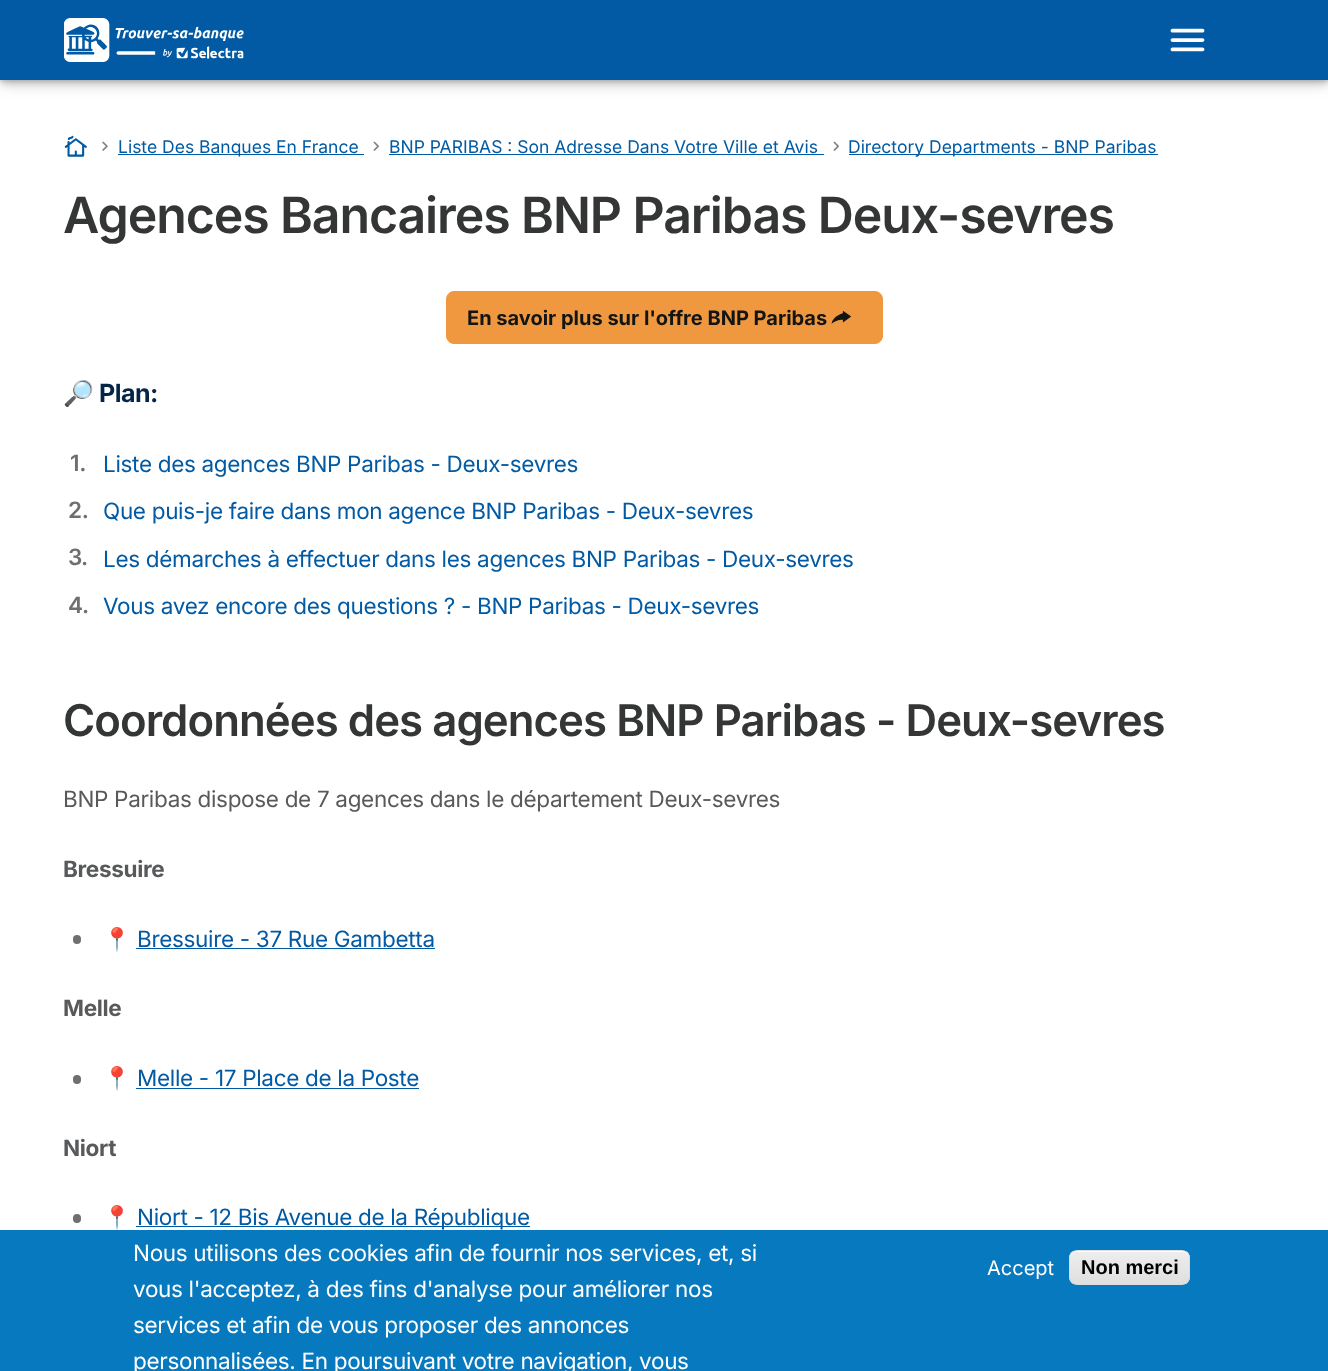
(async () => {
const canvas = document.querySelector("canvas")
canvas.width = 1328
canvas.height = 1371
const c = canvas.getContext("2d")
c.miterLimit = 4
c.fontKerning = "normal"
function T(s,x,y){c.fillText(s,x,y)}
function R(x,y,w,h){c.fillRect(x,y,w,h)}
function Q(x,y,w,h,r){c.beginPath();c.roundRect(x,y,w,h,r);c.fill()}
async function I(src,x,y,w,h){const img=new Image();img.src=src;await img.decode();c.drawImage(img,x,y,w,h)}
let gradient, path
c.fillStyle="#fff"
R(0,0,1328,1371)
c.fillStyle="#00000029"
c.filter="blur(2px)"
c.beginPath()
c.rect(0,1,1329,80)
c.fill()
c.filter="none"
c.filter="blur(4px)"
c.beginPath()
c.rect(1,4,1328,79)
c.fill()
c.filter="none"
c.fillStyle="#00000026"
c.filter="blur(7.5px)"
c.beginPath()
c.rect(1,6,1327,78)
c.fill()
c.filter="none"
c.fillStyle="#015aa3"
R(0,0,1328,80)
await I("1.png",64,18,180,44)
await I("2.png",1170,28,35,24)
await I("3.png",64,135,23,22)
await I("4.png",102,141,6,10)
R(118,154,246,1)
c.font="17.5px Inter"
T("Liste Des Banques En France",118,153)
await I("5.png",373,141,6,10)
T("BNP PARIBAS : Son Adresse Dans Votre Ville et Avis",389,153)
R(389,154,435,1)
await I("5.png",833,141,6,10)
R(849,154,309,1)
T("Directory Departments - BNP Paribas",848,153)
c.letterSpacing="-1.1px"
c.font="600 50px Inter"
c.fillStyle="#343535"
T("Agences Bancaires BNP Paribas Deux-sevres",63,233)
c.fillStyle="#ef983f"
c.beginPath()
c.roundRect(446.5,291.5,436,52,7.5)
c.fill()
c.strokeStyle="#ef983f"
c.stroke()
c.letterSpacing="0px"
c.font="bold 20px Inter"
c.fillStyle="#131414"
T("En savoir plus sur l'offre BNP Paribas",467,325)
await I("6.png",831,311,20,13)
c.letterSpacing="-0.5px"
c.font="bold 25px Noto Color Emoji"
c.fillStyle="#062445"
T("🔎",63,402)
c.font="bold 25px Inter"
T("Plan:",99,402)
c.letterSpacing="-0.32px"
c.font="600 22.5px Inter"
c.fillStyle="#6e6f71"
T("1.",70,471)
c.font="22.5px Inter"
c.fillStyle="#015aa3"
T("Liste des agences BNP Paribas - Deux-sevres",103,472)
c.font="600 22.5px Inter"
c.fillStyle="#6e6f71"
T("2.",68,518)
c.font="22.5px Inter"
c.fillStyle="#015aa3"
T("Que puis-je faire dans mon agence BNP Paribas - Deux-sevres",103,519)
c.font="600 22.5px Inter"
c.fillStyle="#6e6f71"
T("3",68,565)
T(".",81,565)
c.font="22.5px Inter"
c.fillStyle="#015aa3"
T("Les démarches à effectuer dans les agences BNP Paribas - Deux-sevres",103,567)
c.font="600 22.5px Inter"
c.fillStyle="#6e6f71"
T("4",68,613)
T(".",82,613)
c.font="22.5px Inter"
c.fillStyle="#015aa3"
T("Vous avez encore des questions ? - BNP Paribas - Deux-sevres",103,614)
c.letterSpacing="-0.95px"
c.font="600 43.75px Inter"
c.fillStyle="#343535"
T("Coordonnées des agences BNP Paribas - Deux-sevres",63,736)
c.letterSpacing="-0.32px"
c.font="22.5px Inter"
c.fillStyle="#58595b"
T("BNP Paribas dispose de 7 agences dans le département Deux-sevres",63,807)
c.font="bold 22.5px Inter"
T("Bressuire",63,877)
c.fillStyle="#6e6f71"
Q(73,935,8,9,4)
c.font="22.5px Noto Color Emoji"
c.fillStyle="#58595b"
T("📍",103,947)
c.font="22.5px Inter"
c.fillStyle="#015aa3"
T("Bressuire - 37 Rue Gambetta",137,947)
R(136,948,299,1)
c.font="bold 22.5px Inter"
c.fillStyle="#58595b"
T("Melle",63,1016)
c.fillStyle="#6e6f71"
Q(73,1075,8,9,4)
c.font="22.5px Noto Color Emoji"
c.fillStyle="#58595b"
T("📍",103,1086)
c.font="22.5px Inter"
c.fillStyle="#015aa3"
T("Melle - 17 Place de la Poste",137,1086)
R(136,1088,283,1)
c.font="bold 22.5px Inter"
c.fillStyle="#58595b"
T("Niort",63,1156)
c.fillStyle="#6e6f71"
Q(73,1214,8,9,4)
c.font="22.5px Noto Color Emoji"
c.fillStyle="#58595b"
T("📍",103,1225)
c.fillStyle="#015aa3"
R(136,1226,394,1)
c.font="22.5px Inter"
T("Niort - 12 Bis Avenue de la République",137,1225)
c.fillStyle="#0779bf"
R(0,1230,1328,141)
c.fillStyle="#fff"
T("Nous utilisons des cookies afin de fournir nos services, et, si",133,1261)
T("vous l'acceptez, à des fins d'analyse pour améliorer nos",133,1297)
T("services et afin de vous proposer des annonces",133,1333)
T("personnalisées. En poursuivant votre navigation, vous",133,1369)
c.letterSpacing="0px"
c.font="20px Inter"
T("Accept",987,1275)
c.save()
c.beginPath()
c.roundRect(1069,1250,121,35,8)
c.clip()
gradient = c.createLinearGradient(1129,1251,1129,1284)
gradient.addColorStop(.05,"#ededed")
gradient.addColorStop(1,"#dfdfdf")
c.fillStyle = gradient
R(1069,1251,121,33)
c.restore()
path = new Path2D("M1076 1252h106c4 0 7 3 7 7v-2c0-3-3-6-6-6h-107c-3 0-6 3-6 6v2c0-4 3-7 6-7z")
c.fill(path)
c.beginPath()
c.roundRect(1069.5,1250.5,120,34,7.5)
c.strokeStyle="#dcdcdc"
c.stroke()
c.font="bold 20px Liberation Sans"
c.fillStyle="#000"
T("Non merci",1081,1274)
})()
